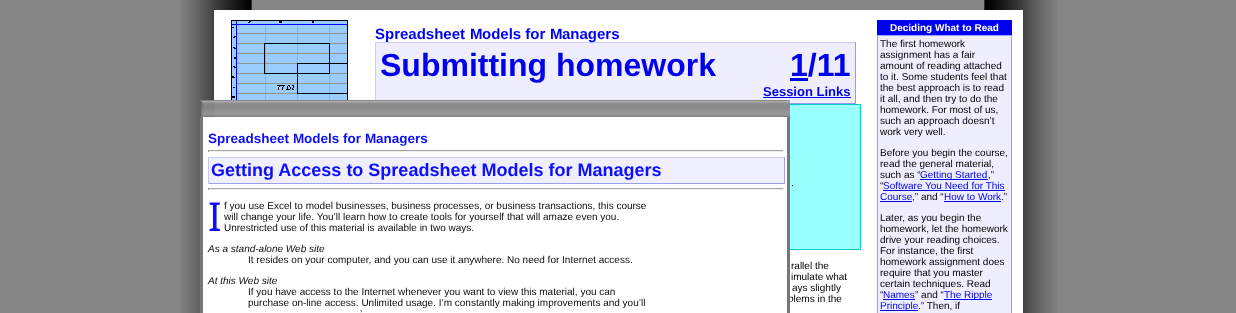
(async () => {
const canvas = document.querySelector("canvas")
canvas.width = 1236
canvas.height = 313
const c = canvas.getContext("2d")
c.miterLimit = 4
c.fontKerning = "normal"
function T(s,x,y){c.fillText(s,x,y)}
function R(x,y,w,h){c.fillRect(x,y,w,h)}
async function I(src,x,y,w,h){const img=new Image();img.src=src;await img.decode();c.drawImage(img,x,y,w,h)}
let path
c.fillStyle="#858585"
R(0,0,1236,313)
await I("1.png",180,0,877,313)
c.fillStyle="#fff"
R(214,10,809,303)
await I("2.png",231,20,117,102)
c.fillStyle="#699"
path = new Path2D("M229 132h123l-2 2h-119z")
c.fill(path)
c.fillStyle="#466"
path = new Path2D("M352 132v176l-2-2v-172z")
c.fill(path)
path = new Path2D("M352 308h-123l2-2h119z")
c.fill(path)
c.fillStyle="#699"
path = new Path2D("M229 308v-176l2 2v172z")
c.fill(path)
c.fillStyle="#00e"
R(270,152,41,1)
R(263,200,54,1)
R(269,212,42,1)
R(271,224,39,1)
R(263,236,54,1)
R(271,248,38,1)
R(249,260,82,1)
R(277,272,27,1)
R(274,296,32,1)
c.font="bold 15px Liberation Sans"
T("S",375,39)
c.fillStyle="#ccf"
R(375,42,481,1)
c.fillStyle="#00f"
T("preadsheet",385,39)
c.fillStyle="#00e"
T("M",470,39)
c.fillStyle="#00f"
T("odels for",482,39)
c.fillStyle="#00e"
T("M",550,39)
c.fillStyle="#00f"
T("anagers",562,39)
c.fillStyle="#eef"
R(376,43,479,60)
c.fillStyle="#99e"
R(855,42,1,62)
R(375,103,481,1)
c.fillStyle="#ccf"
R(375,42,1,62)
c.font="bold 32px Liberation Sans"
c.fillStyle="#00e"
T("Submitting homework",380,76)
T("1/11",790,76)
c.font="bold 13px Liberation Sans"
T("Session Links",763,96)
R(790,78,18,3)
R(763,97,88,1)
c.fillStyle="#9ff"
c.beginPath()
c.rect(375.5,104.5,485,145)
c.fill()
c.strokeStyle="#0cc"
c.stroke()
c.fillStyle="#000"
c.beginPath()
c.arc(390.5,116.5,1.5,0,7)
c.fill()
c.beginPath()
c.arc(390.5,127.5,1.5,0,7)
c.fill()
c.beginPath()
c.arc(411,139,1.5,0,7)
c.strokeStyle="#000"
c.stroke()
c.beginPath()
c.arc(411,150,1.5,0,7)
c.stroke()
c.beginPath()
c.arc(411,183,1.5,0,7)
c.stroke()
c.font="10px Liberation Sans"
T(".",791,186)
c.beginPath()
c.arc(411,194,1.5,0,7)
c.stroke()
R(429,203,3,3)
R(429,214,3,3)
c.beginPath()
c.arc(411,227,1.5,0,7)
c.stroke()
c.beginPath()
c.arc(411,238,1.5,0,7)
c.stroke()
T("rallel the",791,269)
T("imulate what",791,280)
T("ays slightly",792,291)
T("blems in the",788,302)
c.fillStyle="#00e"
R(877,20,135,15)
c.font="bold 10px Liberation Sans"
c.fillStyle="#fff"
T("Deciding What to Read",890,31)
c.fillStyle="#eef"
c.beginPath()
c.rect(877.5,35.5,134,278)
c.fill()
c.strokeStyle="#99f"
c.stroke()
c.font="10px Liberation Sans"
c.fillStyle="#000"
T("The first homework",880,47)
T("assignment has a fair",880,58)
T("amount of reading attached",880,69)
T("to it. Some students feel that",880,80)
T("the best approach is to read",880,91)
T("it all, and then try to do the",880,102)
T("homework. For most of us,",880,113)
T("such an approach doesn’t",880,124)
T("work very well.",880,135)
T("Before you begin the course,",880,156)
T("read the general material,",880,167)
T("such as “",880,178)
c.fillStyle="#00e"
R(920,179,68,1)
T("Getting Started",920,178)
c.fillStyle="#000"
T(",”",988,178)
T("“",880,189)
c.fillStyle="#00e"
T("Software You Need for This",883,189)
R(883,190,122,1)
T("Course",880,200)
R(880,201,32,1)
c.fillStyle="#000"
T(",” and “",912,200)
c.fillStyle="#00e"
T("How to Work",944,200)
R(944,201,57,1)
c.fillStyle="#000"
T(".”",1001,200)
T("Later, as you begin the",880,221)
T("homework, let the homework",880,232)
T("drive your reading choices.",880,243)
T("For instance, the first",880,254)
T("homework assignment does",880,265)
T("require that you master",880,276)
T("certain techniques. Read",880,287)
T("“",880,298)
c.fillStyle="#00e"
T("Names",883,298)
R(883,299,32,1)
c.fillStyle="#000"
T("” and “",915,298)
c.fillStyle="#00e"
R(944,299,48,1)
T("The Ripple",944,298)
R(880,310,38,1)
T("Principle",880,309)
c.fillStyle="#000"
T(".” Then, if",918,309)
c.fillStyle="#fffffff2"
R(200,100,590,213)
await I("3.png",200,100,15,17)
await I("4.png",203,100,587,17)
c.fillStyle="#777"
R(200,117,3,196)
c.fillStyle="#fffffff2"
R(203,117,584,196)
c.fillStyle="#777"
R(787,117,3,196)
c.font="bold 13.5px Liberation Sans"
c.fillStyle="#0d0def"
T("S",208,143)
c.fillStyle="#0d0dff"
T("preadsheet",217,143)
c.fillStyle="#0d0def"
T("M",293,143)
c.fillStyle="#0d0dff"
T("odels for",304,143)
c.fillStyle="#0d0def"
T("M",365,143)
c.fillStyle="#0d0dff"
T("anagers",376,143)
c.fillStyle="#a4a4a4"
R(208,150,576,1)
c.fillStyle="#eaefef"
R(783,150,1,2)
c.fillStyle="#eeeeeef2"
R(208,151,576,1)
c.fillStyle="#9b9b9b"
R(208,150,1,2)
c.fillStyle="#efefff"
R(209,158,576,26)
c.fillStyle="#ceceff"
R(208,157,577,1)
c.fillStyle="#9999eef2"
R(784,157,1,27)
R(208,183,577,1)
c.fillStyle="#c6c6f6"
R(208,157,1,27)
c.font="bold 18px Liberation Sans"
c.fillStyle="#0d0dff"
T("Getting Access to Spreadsheet Models for Managers",211,176)
c.fillStyle="#a4a4a4"
R(208,188,576,1)
c.fillStyle="#eaefef"
R(783,188,1,2)
c.fillStyle="#eeeeeef2"
R(208,189,576,1)
c.fillStyle="#9b9b9b"
R(208,188,1,2)
c.font="40px Noto Sans"
c.fillStyle="#0d0dff"
T("I",208,231)
c.font="10px Liberation Sans"
c.fillStyle="#0d0d0d"
T("f you use Excel to model businesses, business processes, or business transactions, this course",224,209)
T("will change your life. You’ll learn how to create tools for yourself that will amaze even you.",224,220)
T("Unrestricted use of this material is available in two ways.",224,231)
c.font="italic 10px Liberation Sans"
T("As a stand-alone Web site",208,252)
c.font="10px Liberation Sans"
T("It resides on your computer, and you can use it anywhere. No need for Internet access.",248,263)
c.font="italic 10px Liberation Sans"
T("At this Web site",208,284)
c.font="10px Liberation Sans"
T("If you have access to the Internet whenever you want to view this material, you can",248,295)
T("purchase on-line access. Unlimited usage. I’m constantly making improvements and you’ll",248,306)
T("’",360,317)
})()
